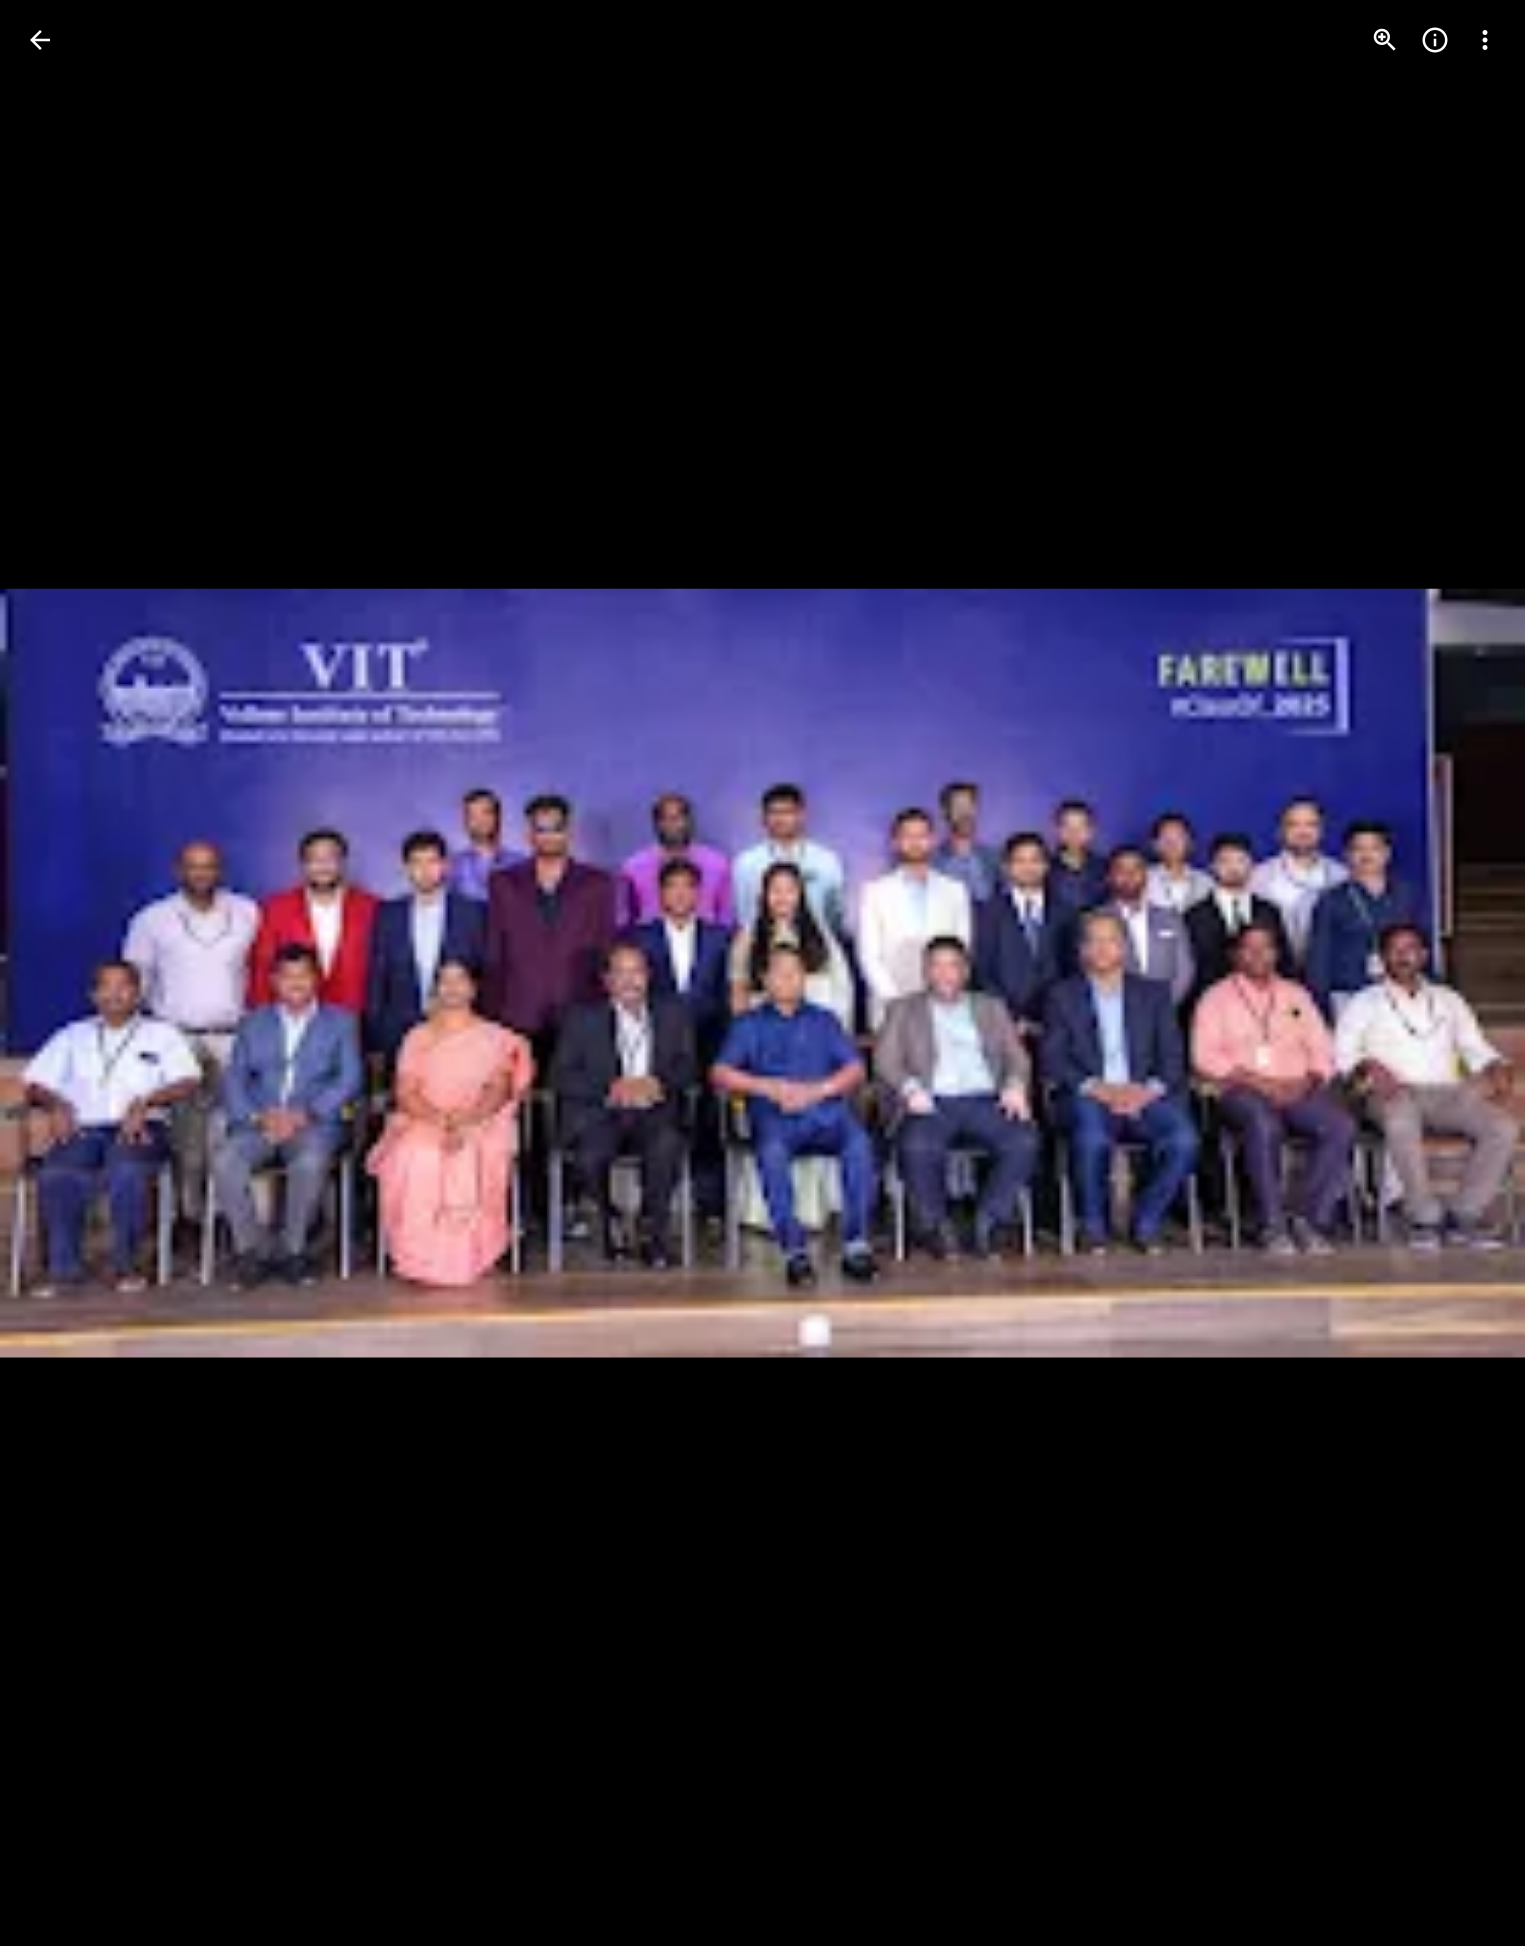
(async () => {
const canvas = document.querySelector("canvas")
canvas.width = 1525
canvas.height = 1946
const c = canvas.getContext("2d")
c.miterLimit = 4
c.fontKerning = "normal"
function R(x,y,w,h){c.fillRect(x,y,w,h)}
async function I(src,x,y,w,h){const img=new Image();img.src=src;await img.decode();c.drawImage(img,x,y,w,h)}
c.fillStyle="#000"
R(0,0,1525,1946)
await I("1.png",30,30,20,20)
await I("2.png",1373,28,23,23)
await I("3.png",1422,27,26,26)
await I("4.png",1482,30,6,20)
await I("5.png",0,588,1525,770)
})()
